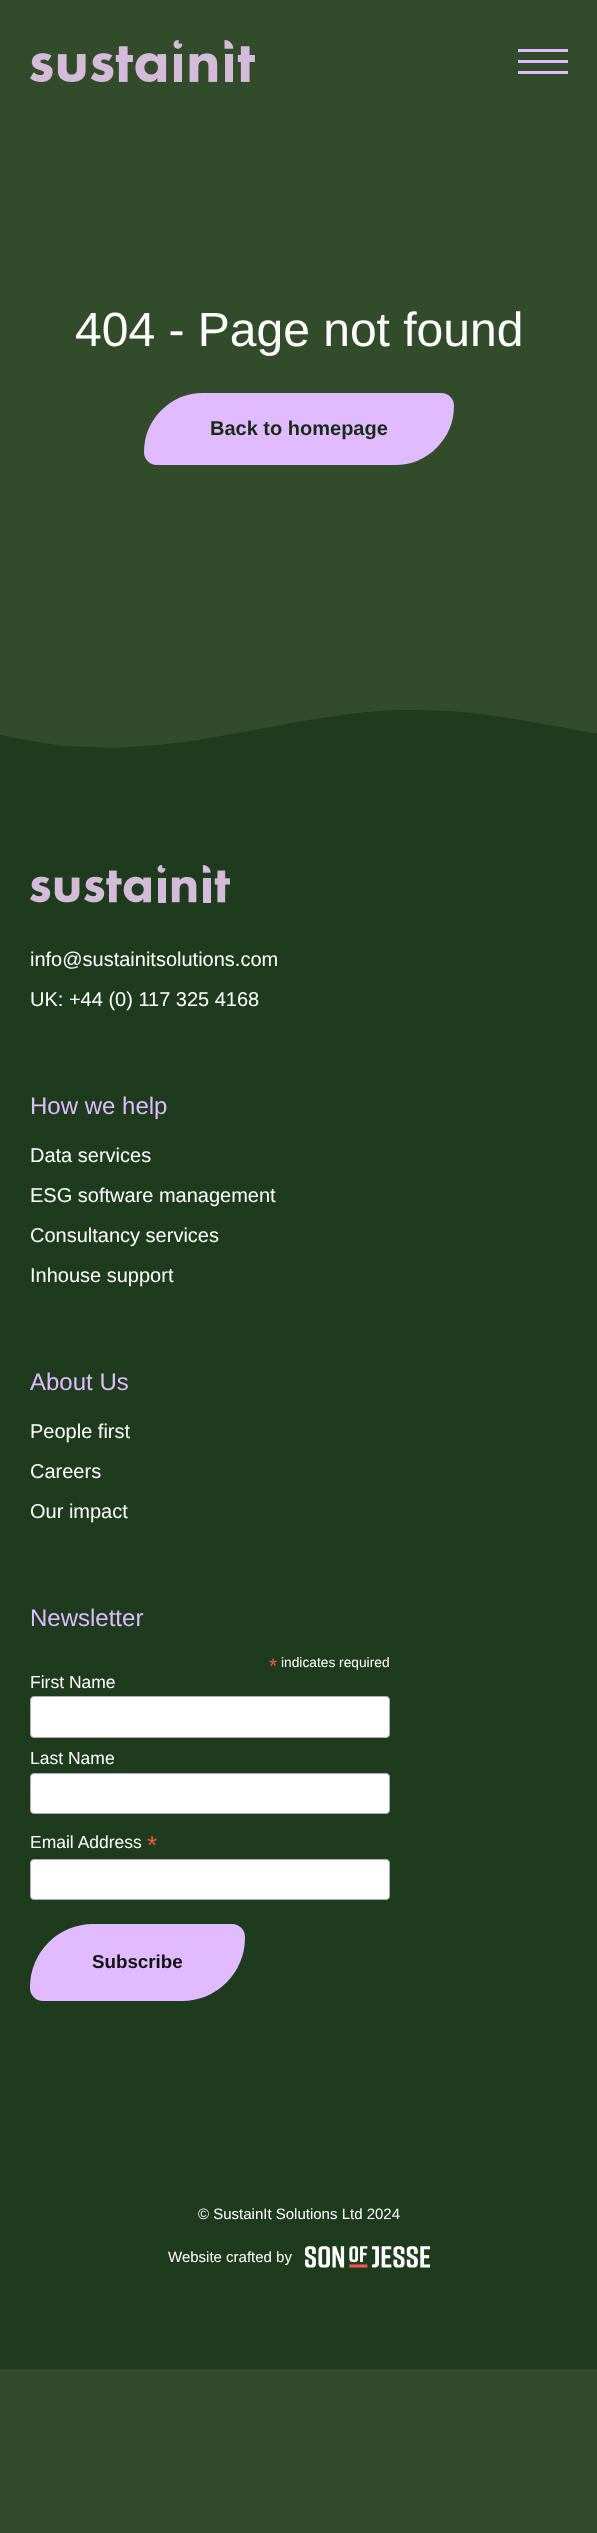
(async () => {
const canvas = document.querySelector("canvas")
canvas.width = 597
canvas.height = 2533
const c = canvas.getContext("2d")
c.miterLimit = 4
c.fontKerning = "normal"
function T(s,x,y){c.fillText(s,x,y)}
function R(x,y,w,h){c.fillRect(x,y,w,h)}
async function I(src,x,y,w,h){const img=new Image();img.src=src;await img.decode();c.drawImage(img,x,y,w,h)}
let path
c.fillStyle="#324b2a"
R(0,0,597,2533)
await I("1.png",30,40,225,42)
c.fillStyle="#e0bbff"
R(518,49,50,3)
R(518,60,50,3)
R(518,71,50,3)
c.font="48px Liberation Sans"
c.fillStyle="#fff"
T("404 - Page not found",75,346)
c.fillStyle="#e0bbff"
c.beginPath()
c.roundRect(146,395,306,68,[57.18,10.82,57.18,10.82])
c.fill()
c.strokeStyle="#e0bbff"
c.lineWidth=4
c.stroke()
c.font="bold 20px Liberation Sans"
c.fillStyle="#182b17"
T("Back to homepage",210,435)
c.fillStyle="#1f3b1e"
R(0,766,597,1603)
path = new Path2D("M0 735v31h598v-32l-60-11l-30-5l-34-5l-26-2l-30-1h-20l-20 1l-29 3l-40 6l-110 20l-40 5l-30 2l-19 1l-20-1l-26-1l-32-5z")
c.fill(path)
await I("2.png",30,865,200,38)
c.font="20px Liberation Sans"
c.fillStyle="#fff"
T("info@sustainitsolutions.com",30,966)
T("UK: +44 (0) 117 325 4168",30,1006)
c.font="24px Liberation Sans"
c.fillStyle="#e0bbff"
T("How we help",30,1114)
c.font="20px Liberation Sans"
c.fillStyle="#fff"
T("Data services",30,1162)
T("ESG software management",30,1202)
T("Consultancy services",30,1242)
T("Inhouse support",30,1282)
c.font="24px Liberation Sans"
c.fillStyle="#e0bbff"
T("About Us",30,1390)
c.font="20px Liberation Sans"
c.fillStyle="#fff"
T("People first",30,1438)
T("Careers",30,1478)
T("Our impact",30,1518)
c.font="24px Liberation Sans"
c.fillStyle="#e0bbff"
T("Newsletter",30,1626)
c.font="21px Liberation Sans"
c.fillStyle="#e85c41"
T("*",269,1673)
c.font="13.75px Liberation Sans"
c.fillStyle="#fff"
T("indicates required",281,1667)
c.font="17.5px Liberation Sans"
T("First Name",30,1688)
c.beginPath()
c.roundRect(30.5,1696.5,359,41,3.5)
c.fill()
c.strokeStyle="#abb0b2"
c.lineWidth=1
c.stroke()
T("Last Name",30,1764)
c.beginPath()
c.roundRect(30.5,1773.5,359,40,3.5)
c.fill()
c.stroke()
T("Email Address",30,1848)
c.font="26px Liberation Sans"
c.fillStyle="#e85c41"
T("*",147,1854)
c.fillStyle="#fff"
c.beginPath()
c.roundRect(30.5,1859.5,359,40,3.5)
c.fill()
c.stroke()
c.fillStyle="#e0bbff"
c.beginPath()
c.roundRect(30,1924,215,77,[63,13,63,13])
c.fill()
c.font="bold 18.75px Liberation Sans"
c.fillStyle="#111"
T("Subscribe",92,1968)
c.font="15px Liberation Sans"
c.fillStyle="#fff"
T("© SustainIt Solutions Ltd 2024",198,2219)
T("Website crafted by",168,2262)
await I("3.png",305,2246,125,22)
})()
